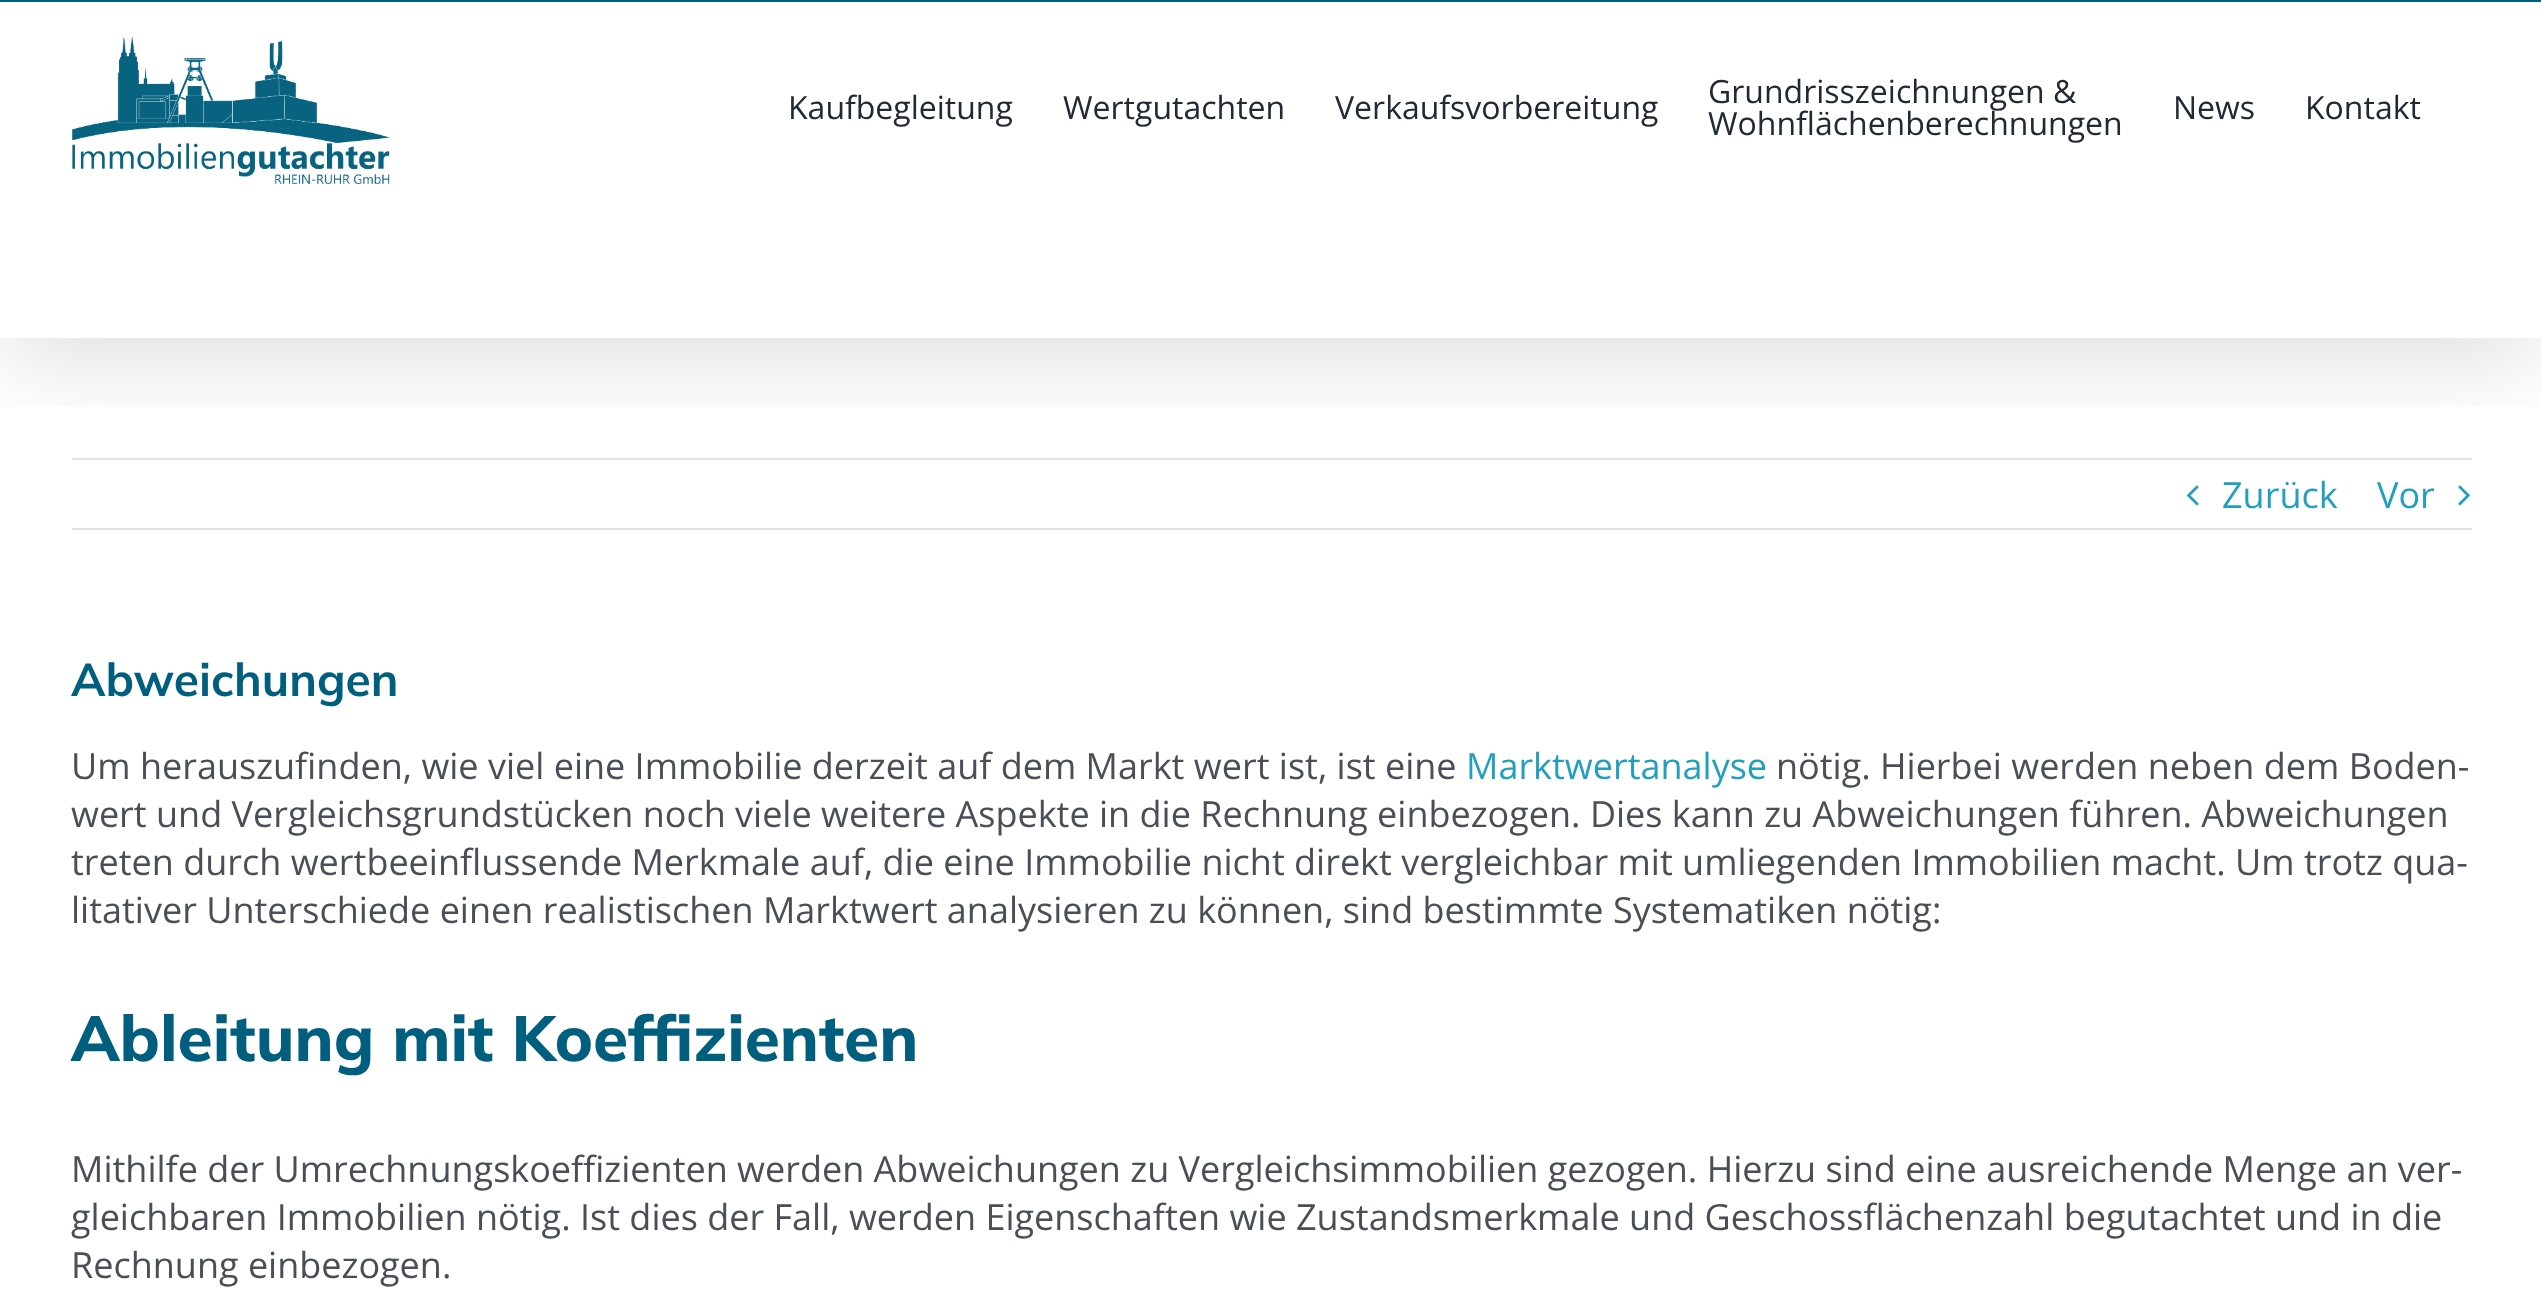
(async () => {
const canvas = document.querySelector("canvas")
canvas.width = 2541
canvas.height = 1306
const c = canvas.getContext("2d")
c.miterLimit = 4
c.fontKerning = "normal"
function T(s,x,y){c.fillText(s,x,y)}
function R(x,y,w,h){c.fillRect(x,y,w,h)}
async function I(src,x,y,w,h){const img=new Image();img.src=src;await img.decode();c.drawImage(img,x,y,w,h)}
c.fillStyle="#fff"
R(0,0,2541,1306)
c.fillStyle="#e2e2e2"
R(72,458,2400,2)
await I("2.png",2187,485,12,21)
await I("3.png",2458,485,12,21)
c.save()
c.beginPath()
c.rect(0,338,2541,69)
c.clip()
c.fillStyle="#00000024"
c.filter="blur(50px)"
c.beginPath()
c.rect(4,24,2534,330)
c.fill()
c.filter="none"
c.restore()
c.fillStyle="#005f7e"
R(0,0,2541,2)
await I("1.png",72,35,318,149)
c.font="32px Open Sans"
c.fillStyle="#212934"
T("Kaufbegleitung",788,119)
T("Wertgutachten",1063,119)
T("Verkaufsvorbereitung",1335,119)
T("Grundrisszeichnungen &",1708,103)
T("Wohnflächenberechnungen",1708,135)
T("News",2173,119)
T("Kontakt",2305,119)
c.fillStyle="#e2e2e2"
R(72,528,2400,2)
c.font="36px Open Sans"
c.fillStyle="#229fbf"
T("Zurück",2222,508)
T("Vor",2377,508)
c.font="bold 46px Mulish"
c.fillStyle="#005f7e"
T("Abweichungen",71,696)
c.font="36px Open Sans"
c.fillStyle="#4a4e57"
T("Um herauszufinden, wie viel eine Immobilie derzeit auf dem Markt wert ist, ist eine",71,779)
c.fillStyle="#229fbf"
T("Marktwertanalyse",1466,779)
c.fillStyle="#4a4e57"
T("nötig. Hierbei werden neben dem Boden-",1776,779)
T("wert und Vergleichsgrundstücken noch viele weitere Aspekte in die Rechnung einbezogen. Dies kann zu Abweichungen führen. Abweichungen",71,827)
T("treten durch wertbeeinflussende Merkmale auf, die eine Immobilie nicht direkt vergleichbar mit umliegenden Immobilien macht. Um trotz qua-",71,875)
T("litativer Unterschiede einen realistischen Marktwert analysieren zu können, sind bestimmte Systematiken nötig:",71,923)
c.font="800 64px Mulish"
c.fillStyle="#005f7e"
T("Ableitung mit Koeffizienten",71,1061)
c.font="36px Open Sans"
c.fillStyle="#4a4e57"
T("Mithilfe der Umrechnungskoeffizienten werden Abweichungen zu Vergleichsimmobilien gezogen. Hierzu sind eine ausreichende Menge an ver-",71,1182)
T("gleichbaren Immobilien nötig. Ist dies der Fall, werden Eigenschaften wie Zustandsmerkmale und Geschossflächenzahl begutachtet und in die",71,1230)
T("Rechnung einbezogen.",71,1278)
})()
